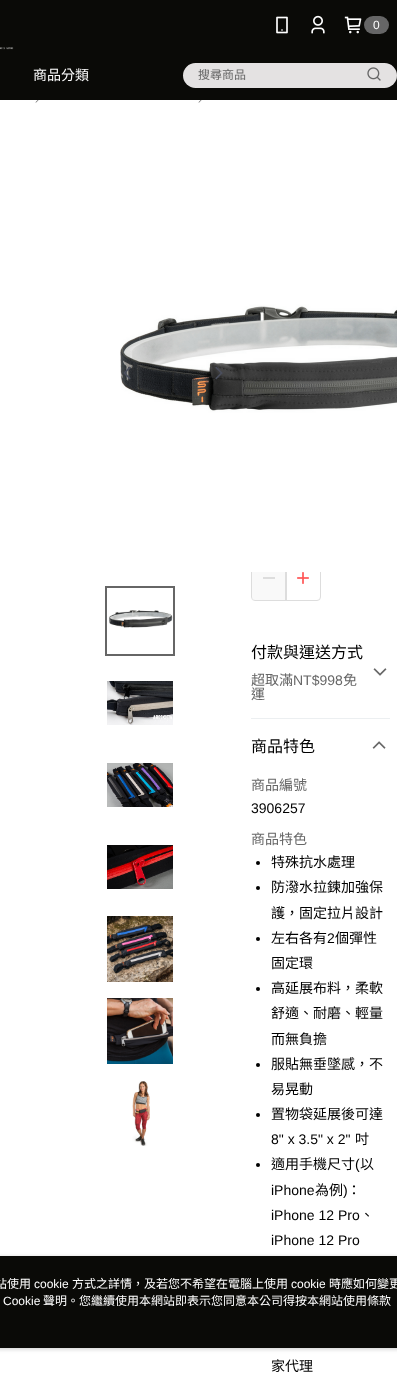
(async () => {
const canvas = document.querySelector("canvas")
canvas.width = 397
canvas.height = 1394
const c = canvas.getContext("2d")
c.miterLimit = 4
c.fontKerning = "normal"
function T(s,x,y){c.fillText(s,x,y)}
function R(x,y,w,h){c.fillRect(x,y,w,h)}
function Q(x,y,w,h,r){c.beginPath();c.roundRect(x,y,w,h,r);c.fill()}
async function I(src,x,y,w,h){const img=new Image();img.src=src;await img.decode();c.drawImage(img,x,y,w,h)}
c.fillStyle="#fff"
R(0,0,397,1394)
c.fillStyle="#0a0a07"
R(0,0,397,100)
await I("1.png",0,47,14,3)
await I("2.png",276,16,12,18)
await I("3.png",311,15,14,19)
await I("4.png",344,16,18,18)
c.fillStyle="#666"
Q(364,16,25,18,9)
c.font="12px Liberation Sans"
c.fillStyle="#fff"
T("0",373,29)
c.font="14px Noto Sans CJK TC"
T("商品分類",33,80)
c.fillStyle="#e4e2e2"
Q(183,63,214,25,12.5)
c.font="12px Noto Sans CJK TC"
c.fillStyle="#666"
T("搜尋商品",198,79)
await I("5.png",367,67,14,14)
await I("6.png",35,100,4,3)
await I("6.png",198,100,4,3)
c.beginPath()
c.roundRect(251.5,555.5,69,45,3.5)
c.strokeStyle="#ddd"
c.stroke()
await I("7.png",120,176,277,396)
await I("8.png",123,366,8,14)
await I("9.png",215,366,8,14)
await I("10.png",109,610,64,18)
c.strokeStyle="#666"
c.lineWidth=2
c.strokeRect(106,587,68,68)
await I("11.png",107,681,66,44)
await I("12.png",107,763,66,44)
await I("13.png",107,845,66,44)
await I("14.png",107,916,66,66)
await I("15.png",107,998,66,66)
await I("16.png",132,1081,18,65)
c.fillStyle="#f1f1f166"
R(252,572,33,28)
c.fillStyle="#ddd"
R(263,577,12,2)
R(285,572,2,28)
await I("17.png",297,572,12,12)
c.fillStyle="#eceff1"
R(251,718,139,1)
c.font="16px Noto Sans CJK TC"
c.fillStyle="#000"
T("付款與運送方式",251,658)
c.font="14px Noto Sans CJK TC"
c.fillStyle="#666"
T("超取滿",251,685)
c.font="14px Liberation Sans"
T("NT$998",293,685)
c.font="14px Noto Sans CJK TC"
T("免",343,685)
T("運",251,699)
await I("18.png",373,668,14,8)
c.font="16px Noto Sans CJK TC"
c.fillStyle="#000"
T("商品特色",251,752)
await I("19.png",372,741,14,8)
c.font="14px Noto Sans CJK TC"
c.fillStyle="#666"
T("商品編號",251,790)
c.font="14px Liberation Sans"
c.fillStyle="#000"
T("3906257",251,813)
c.font="14px Noto Sans CJK TC"
c.fillStyle="#666"
T("商品特色",251,844)
c.fillStyle="#000"
c.beginPath()
c.arc(258,863,2,0,7)
c.fill()
T("特殊抗水處理",271,867)
c.beginPath()
c.arc(258,888,2,0,7)
c.fill()
T("防潑水拉鍊加強保",271,892)
T("護，固定拉片設計",271,918)
c.beginPath()
c.arc(258,939,2,0,7)
c.fill()
T("左右各有",271,943)
c.font="14px Liberation Sans"
T("2",327,943)
c.font="14px Noto Sans CJK TC"
T("個彈性",335,943)
T("固定環",271,968)
c.beginPath()
c.arc(258,989,2,0,7)
c.fill()
T("高延展布料，柔軟",271,993)
T("舒適、耐磨、輕量",271,1018)
T("而無負擔",271,1044)
c.beginPath()
c.arc(258,1065,2,0,7)
c.fill()
T("服貼無垂墜感，不",271,1069)
T("易晃動",271,1094)
c.beginPath()
c.arc(258,1115,2,0,7)
c.fill()
T("置物袋延展後可達",271,1119)
c.font="14px Liberation Sans"
T("8\" x 3.5\" x 2\"",271,1144)
c.font="14px Noto Sans CJK TC"
T("吋",355,1144)
c.beginPath()
c.arc(258,1165,2,0,7)
c.fill()
T("適用手機尺寸",271,1169)
c.font="14px Liberation Sans"
T("(",355,1169)
c.font="14px Noto Sans CJK TC"
T("以",360,1169)
c.font="14px Liberation Sans"
T("iPhone",271,1195)
c.font="14px Noto Sans CJK TC"
T("為例",315,1195)
c.font="14px Liberation Sans"
T(")",343,1195)
c.font="14px Noto Sans CJK TC"
T("：",347,1195)
c.font="14px Liberation Sans"
T("iPhone 12 Pro",271,1220)
c.font="14px Noto Sans CJK TC"
T("、",360,1220)
c.font="14px Liberation Sans"
T("iPhone 12 Pro",271,1245)
c.font="14px Noto Sans CJK TC"
T("家代理",271,1371)
c.fillStyle="#97979780"
c.filter="blur(2px)"
c.beginPath()
c.roundRect(-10,1257,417,92,4)
c.fill()
c.filter="none"
c.fillStyle="#0a0a07"
R(0,1256,397,92)
c.font="12px Noto Sans CJK TC"
c.fillStyle="#fff"
T("站使用",-5,1288)
c.font="12px Liberation Sans"
T("cookie",34,1288)
c.font="12px Noto Sans CJK TC"
T("方式之詳情，及若您不希望在電腦上使用",72,1288)
c.font="12px Liberation Sans"
T("cookie",291,1288)
c.font="12px Noto Sans CJK TC"
T("時應如何變更",329,1288)
c.font="12px Liberation Sans"
T("Cookie",3,1305)
c.font="12px Noto Sans CJK TC"
T("聲明。您繼續使用本網站即表示您同意本公司得按本網站使用條款",43,1305)
})()
